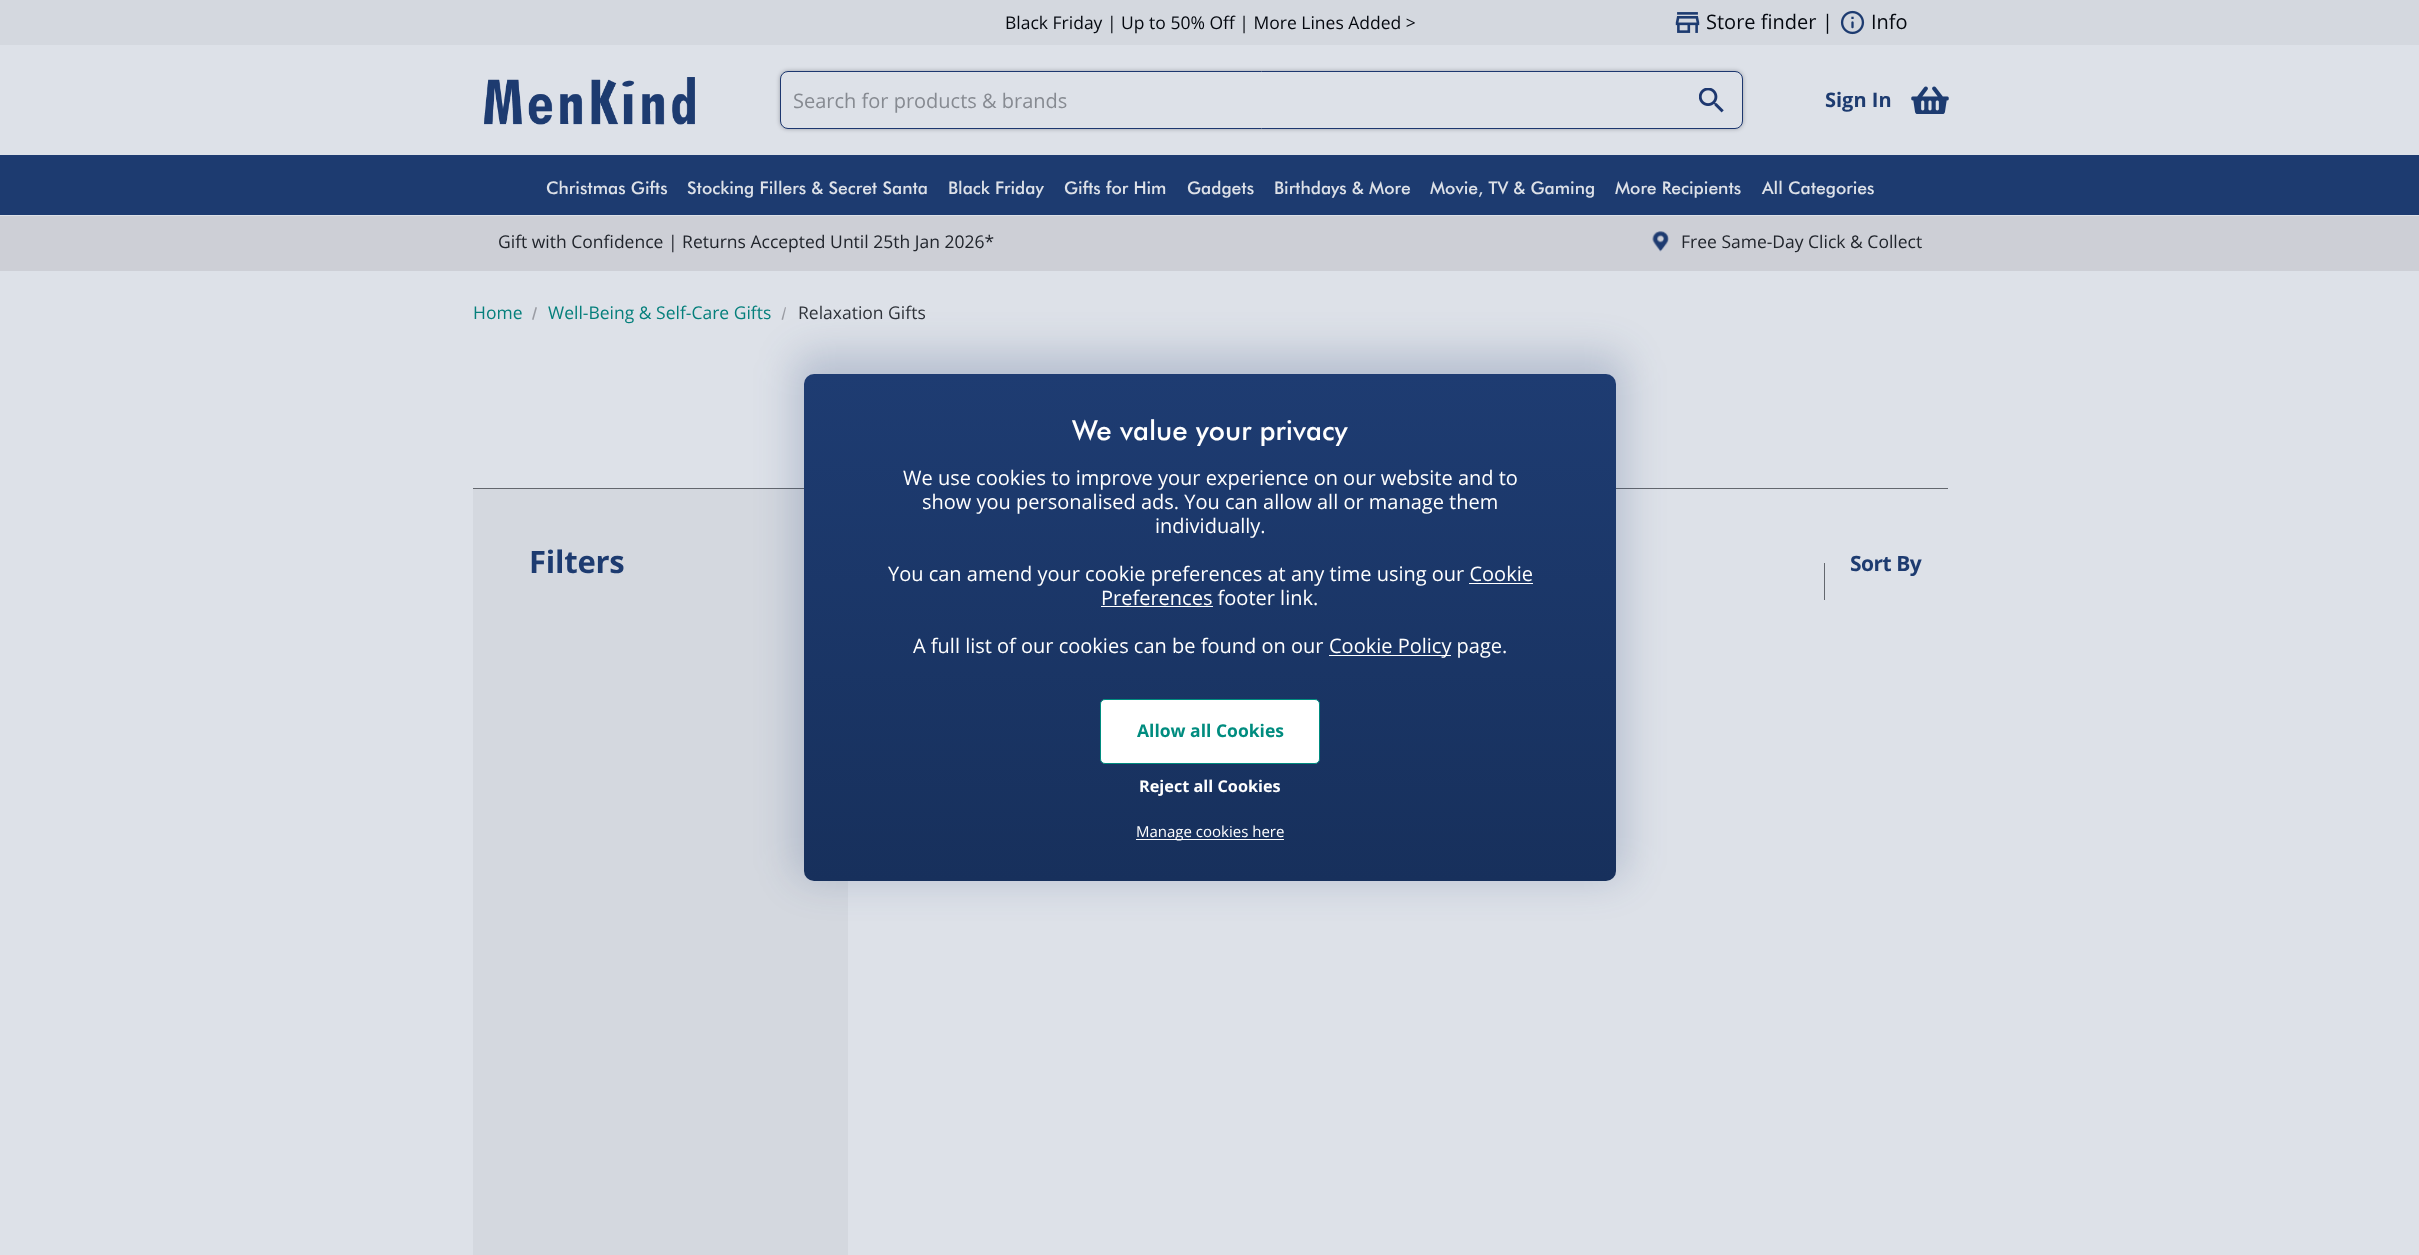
(async () => {
const canvas = document.querySelector("canvas")
canvas.width = 2419
canvas.height = 1255
const c = canvas.getContext("2d")
c.miterLimit = 4
c.fontKerning = "normal"
function T(s,x,y){c.fillText(s,x,y)}
function R(x,y,w,h){c.fillRect(x,y,w,h)}
function Q(x,y,w,h,r){c.beginPath();c.roundRect(x,y,w,h,r);c.fill()}
async function I(src,x,y,w,h){const img=new Image();img.src=src;await img.decode();c.drawImage(img,x,y,w,h)}
let gradient, path
c.fillStyle="#dde1e8"
R(0,0,2419,1255)
c.fillStyle="#d4d8df"
R(0,0,2419,45)
c.font="17.5px Open Sans"
c.fillStyle="#04080f"
T("Black Friday | Up to 50% Off | More Lines Added >",1005,29)
await I("1.png",1675,12,25,21)
c.font="20px Open Sans"
T("Store finder",1706,29)
T("|",1822,29)
await I("2.png",1840,10,25,25)
T("Info",1871,29)
await I("3.png",484,77,211,48)
c.fillStyle="#04080f4d"
c.filter="blur(2px)"
c.beginPath()
c.roundRect(780,71,963,58,8)
c.fill()
c.filter="none"
c.fillStyle="#dde1e8"
c.beginPath()
c.roundRect(780.5,71.5,962,57,7.5)
c.fill()
c.strokeStyle="#1d376f"
c.stroke()
c.fillStyle="#868a91"
T("Search for products & brands",793,108)
await I("4.png",1699,88,25,25)
c.font="bold 20px Open Sans"
c.fillStyle="#1d3b70"
T("Sign In",1825,107)
await I("5.png",1911,86,38,28)
R(0,155,2419,60)
c.font="500 17.5px Futura"
c.fillStyle="#dde1e8"
T("Christmas Gifts",546,194)
T("Stocking Fillers & Secret Santa",687,194)
T("Black Friday",948,194)
T("Gifts for Him",1064,194)
T("Gadgets",1187,194)
T("Birthdays & More",1274,194)
T("Movie, TV & Gaming",1430,194)
T("More Recipients",1615,194)
T("All Categories",1762,194)
c.fillStyle="#cdcfd6"
R(0,216,2419,55)
c.font="17.5px Open Sans"
c.fillStyle="#21252c"
T("Gift with Confidence | Returns Accepted Until 25th Jan 2026*",498,248)
await I("6.png",1652,231,17,21)
T("Free Same-Day Click & Collect",1681,248)
c.fillStyle="#047f7b"
T("Home",473,319)
c.fillStyle="#9a9ca3"
path = new Path2D("M535.5 307l1.5 .5l-3.5 12.5l-1.5-.5z")
c.fill(path)
c.fillStyle="#047f7b"
T("Well-Being & Self-Care Gifts",548,319)
c.fillStyle="#9a9ca3"
path = new Path2D("M785 307l1 .5l-3 12.5l-1.5-.5z")
c.fill(path)
c.fillStyle="#2f333a"
T("Relaxation Gifts",798,319)
c.fillStyle="#63676e"
R(473,488,1475,1)
c.fillStyle="#d4d8df"
R(473,489,375,766)
c.letterSpacing="-0.25px"
c.font="bold 31px Open Sans"
c.fillStyle="#1d3b70"
T("Filters",529,573)
c.fillStyle="#63676e"
R(1824,563,1,37)
c.letterSpacing="-0.5px"
c.font="bold 21px Open Sans"
c.fillStyle="#1d3b70"
T("Sort By",1850,571)
c.fillStyle="#1e3c7233"
c.filter="blur(19.5px)"
c.beginPath()
c.roundRect(794,353,832,527,20)
c.fill()
c.filter="none"
gradient = c.createLinearGradient(1210,373,1210,881)
gradient.addColorStop(0,"#1e3c72")
gradient.addColorStop(1,"#17305c")
c.fillStyle = gradient
Q(804,374,812,507,10)
c.letterSpacing="0px"
c.font="500 27.5px Futura"
c.fillStyle="#fff"
T("We value your privacy",1072,440)
c.font="20px Open Sans"
T("We use cookies to improve your experience on our website and to",903,485)
T("show you personalised ads. You can allow all or manage them",922,509)
T("individually.",1155,533)
T("You can amend your cookie preferences at any time using our Cookie",888,581)
R(1469,583,64,1)
T("Preferences footer link.",1101,605)
R(1101,606,112,1)
T("A full list of our cookies can be found on our",913,653)
R(1329,655,122,1)
T("Cookie Policy page.",1329,653)
c.beginPath()
c.roundRect(1100.5,699.5,219,64,4.5)
c.fill()
c.strokeStyle="#008c7f"
c.stroke()
c.font="bold 17.5px Open Sans"
c.fillStyle="#008c7f"
T("Allow all Cookies",1137,737)
c.font="bold 16.25px Open Sans"
c.fillStyle="#fff"
T("Reject all Cookies",1139,792)
R(1136,839,148,1)
c.font="15px Open Sans"
T("Manage cookies here",1136,837)
})()
